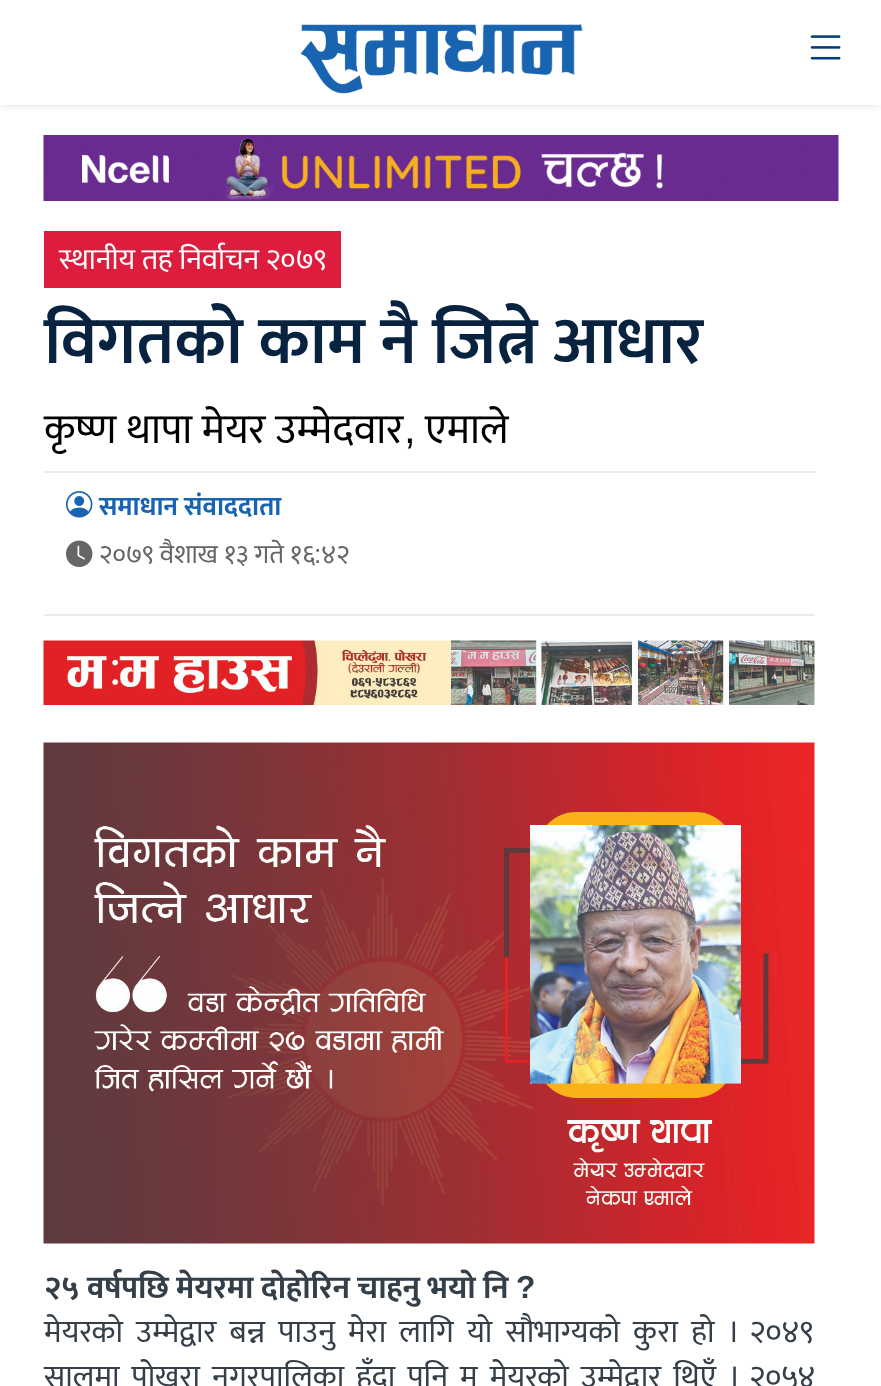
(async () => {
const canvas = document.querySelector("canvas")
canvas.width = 881
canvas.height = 1386
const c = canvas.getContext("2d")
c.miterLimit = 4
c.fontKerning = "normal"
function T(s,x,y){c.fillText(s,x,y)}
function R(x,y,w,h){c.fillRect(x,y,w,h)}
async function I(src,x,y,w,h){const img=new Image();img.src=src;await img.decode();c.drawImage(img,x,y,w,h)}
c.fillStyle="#fff"
R(0,0,881,1386)
c.save()
c.beginPath()
c.rect(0,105,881,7)
c.clip()
c.fillStyle="#d0d0d0"
c.filter="blur(4px)"
c.beginPath()
c.rect(3,5,876,99)
c.fill()
c.filter="none"
c.restore()
await I("1.png",300,24,283,70)
await I("2.png",810,35,31,25)
await I("3.png",43,135,796,66)
c.fillStyle="#eaeaea"
R(44,614,771,2)
c.fillStyle="#de1d3e"
R(44,231,297,57)
c.font="29.5px Mukta"
c.fillStyle="#fff"
T("स्थानीय तह निर्वाचन २०७९",59,269)
c.font="600 67.25px Mukta"
c.fillStyle="#072340"
T("विगतको काम नै जित्ने आधार",44,363)
c.font="42px Mukta"
c.fillStyle="#000"
T("कृष्ण थापा मेयर उम्मेदवार",44,443)
c.font="42px Liberation Sans"
T(",",404,443)
c.font="42px Mukta"
T("एमाले",425,443)
c.fillStyle="#eaeaea"
R(44,471,771,2)
await I("4.png",66,491,27,27)
c.font="bold 26.5px Mukta"
c.fillStyle="#1964b0"
T("समाधान संवाददाता",99,515)
await I("5.png",66,540,27,27)
c.font="26.5px Mukta"
c.fillStyle="#666"
T("२०७९ वैशाख १३ गते १६",99,563)
c.font="26.5px Liberation Sans"
T(":",314,563)
c.font="26.5px Mukta"
T("४२",321,563)
await I("6.png",43,640,772,65)
await I("7.png",43,742,772,502)
c.font="bold 31.75px Mukta"
c.fillStyle="#343f4a"
T("२५ वर्षपछि मेयरमा दोहोरिन चाहनु भयो नि",44,1298)
c.font="bold 31.75px Liberation Sans"
T("?",516,1298)
c.wordSpacing="6px"
c.font="31.75px Mukta"
T("मेयरको उम्मेद्वार बन्न पाउनु मेरा लागि यो सौभाग्यको कुरा हो । २०४९",44,1342)
c.wordSpacing="5px"
T("सालमा पोखरा नगरपालिका हुँदा पनि म मेयरको उम्मेद्वार थिएँ । २०५४",44,1387)
})()
